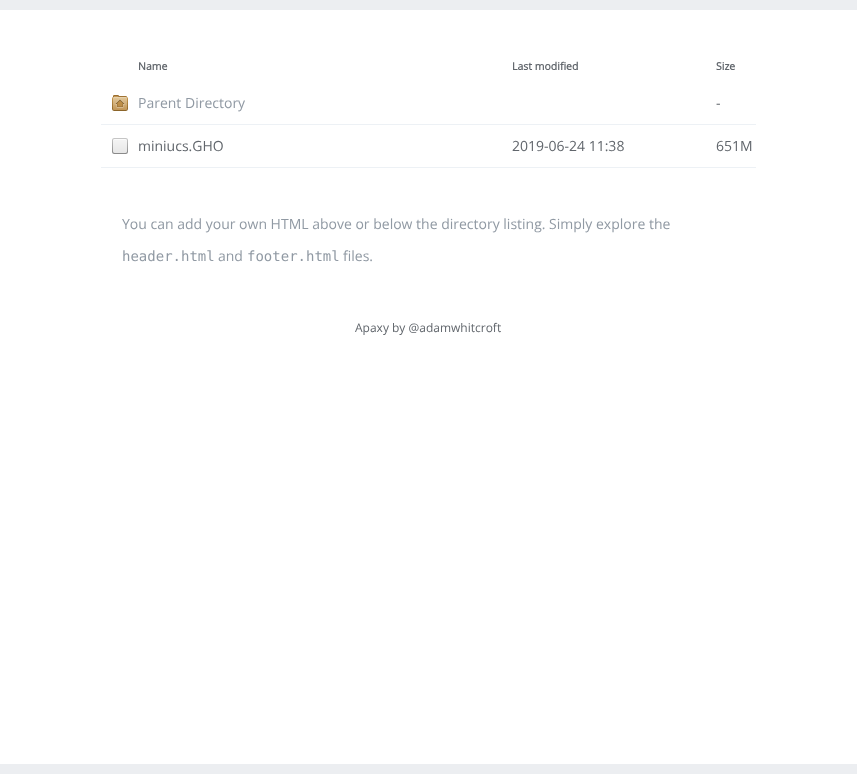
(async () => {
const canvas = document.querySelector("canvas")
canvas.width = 857
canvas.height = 774
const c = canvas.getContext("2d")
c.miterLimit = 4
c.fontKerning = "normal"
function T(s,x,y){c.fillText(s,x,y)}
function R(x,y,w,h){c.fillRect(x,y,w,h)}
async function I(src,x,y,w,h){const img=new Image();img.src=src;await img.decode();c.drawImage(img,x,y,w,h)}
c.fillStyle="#fff"
R(0,0,857,774)
c.fillStyle="#eceef1"
R(0,0,857,10)
R(0,764,857,10)
c.font="bold 10.5px Open Sans"
c.fillStyle="#61666c"
T("Name",138,70)
T("Last modified",512,70)
T("Size",716,70)
await I("1.png",112,95,16,16)
c.font="14px Open Sans"
c.fillStyle="#9099a3"
T("Parent Directory",138,108)
c.fillStyle="#edf1f5"
R(101,124,655,1)
c.fillStyle="#61666c"
T("-",716,108)
await I("2.png",112,138,16,16)
T("miniucs.GHO",138,151)
T("2019-06-24 11:38",512,151)
c.fillStyle="#edf1f5"
R(101,167,655,1)
c.fillStyle="#61666c"
T("651M",716,151)
c.fillStyle="#9099a3"
T("You can add your own HTML above or below the directory listing. Simply explore the",122,229)
c.font="14px DejaVu Sans Mono"
T("header.html",122,261)
c.font="14px Open Sans"
T("and",218,261)
c.font="14px DejaVu Sans Mono"
T("footer.html",247,261)
c.font="14px Open Sans"
T("files.",343,261)
c.font="12px Open Sans"
c.fillStyle="#61666c"
T("Apaxy by @adamwhitcroft",355,332)
})()
